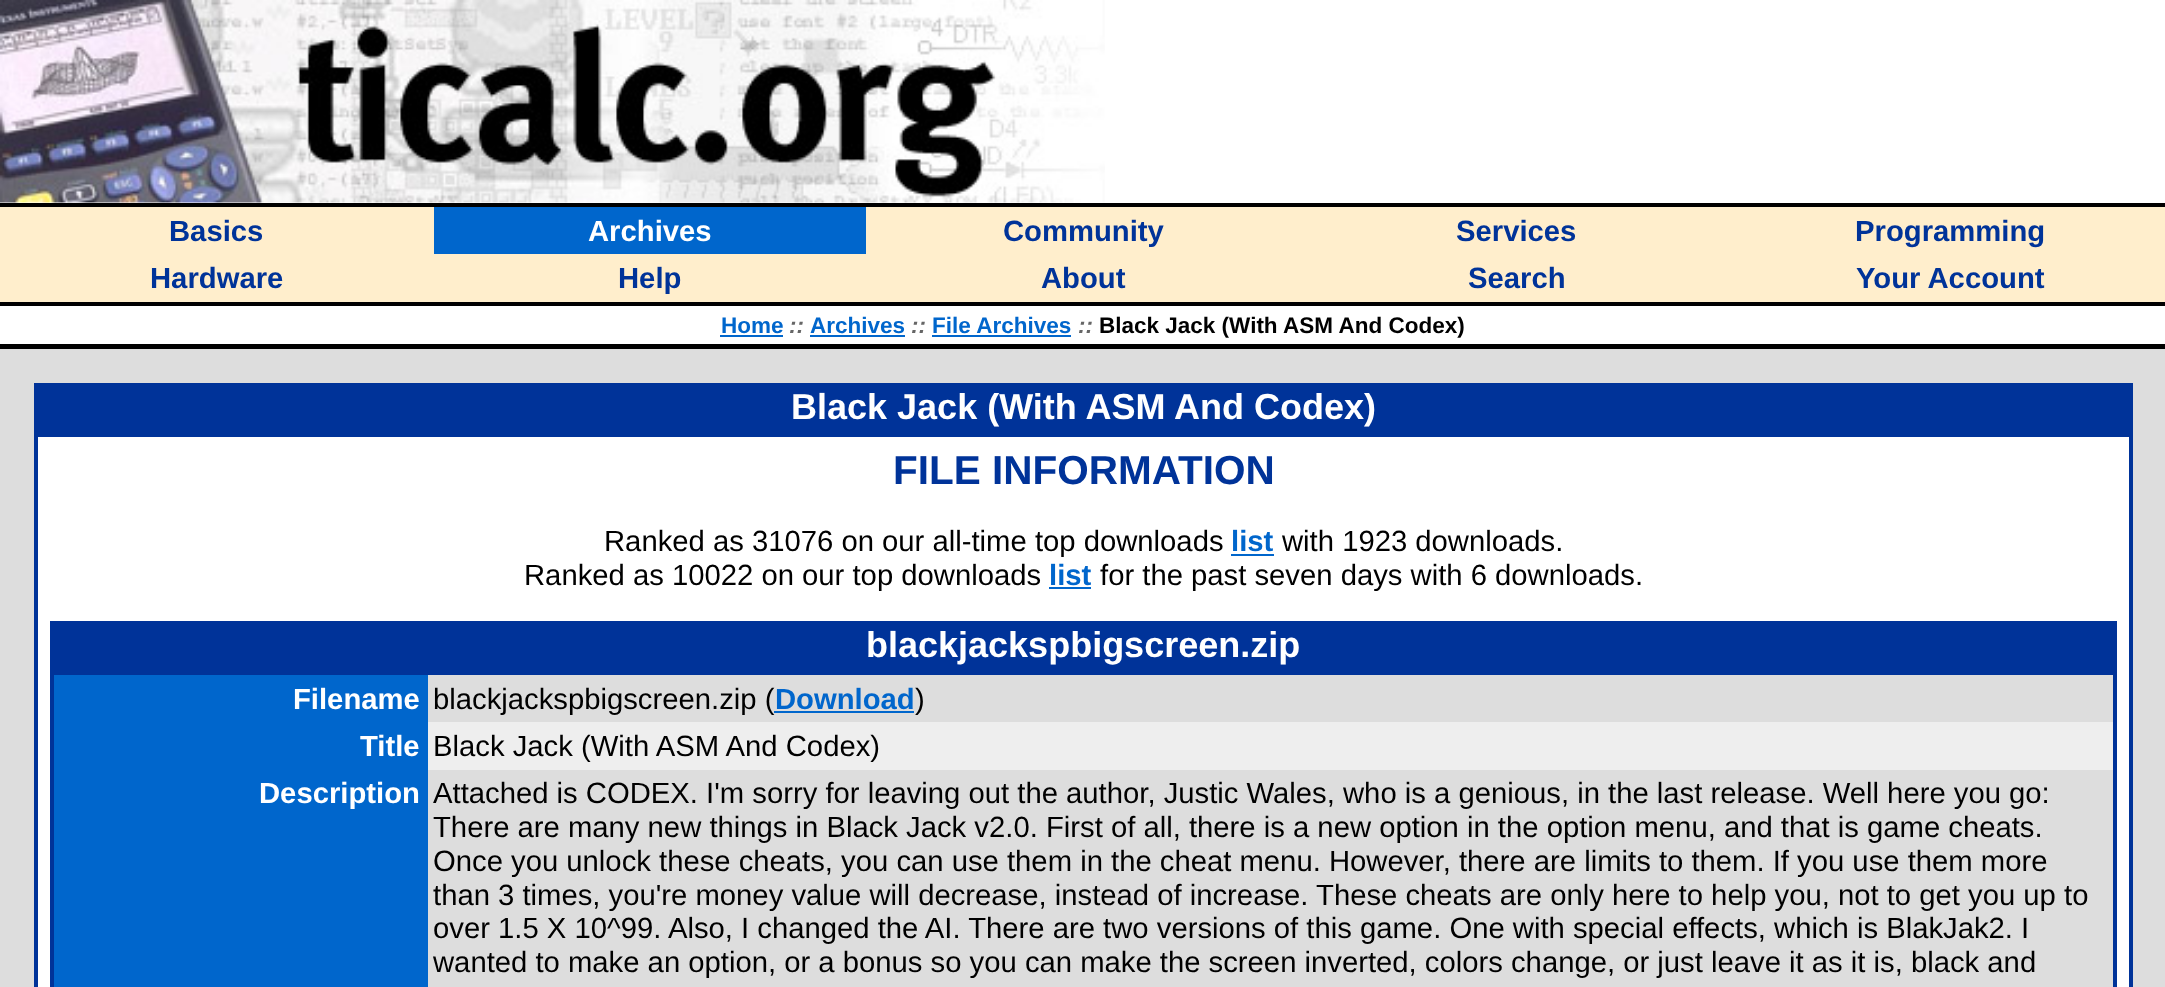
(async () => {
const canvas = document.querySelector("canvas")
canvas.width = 2165
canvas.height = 987
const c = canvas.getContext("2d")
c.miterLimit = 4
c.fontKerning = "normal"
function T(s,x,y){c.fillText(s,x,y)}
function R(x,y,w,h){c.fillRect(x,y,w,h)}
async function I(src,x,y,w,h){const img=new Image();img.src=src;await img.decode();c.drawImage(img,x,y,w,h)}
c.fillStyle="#fff"
R(0,0,2165,987)
await I("1.png",0,0,1105,203)
c.fillStyle="#000"
R(0,203,2165,4)
c.fillStyle="#fec"
R(0,207,2165,95)
c.font="bold 29.25px Liberation Sans"
c.fillStyle="#039"
T("Basics",169,241)
c.fillStyle="#06c"
R(434,207,432,47)
c.fillStyle="#fff"
T("Archives",588,241)
c.fillStyle="#039"
T("Community",1003,241)
T("Services",1456,241)
T("Programming",1855,241)
T("Hardware",150,288)
T("Help",618,288)
T("About",1041,288)
T("Search",1468,288)
T("Your Account",1856,288)
c.fillStyle="#000"
R(0,302,2165,4)
c.font="bold 22.5px Liberation Sans"
c.fillStyle="#06c"
T("Home",721,333)
R(720,335,63,2)
c.font="italic bold 22.5px Liberation Sans"
c.fillStyle="#666"
T("::",789,333)
c.font="bold 22.5px Liberation Sans"
c.fillStyle="#06c"
T("Archives",810,333)
R(810,335,95,2)
c.font="italic bold 22.5px Liberation Sans"
c.fillStyle="#666"
T("::",911,333)
c.font="bold 22.5px Liberation Sans"
c.fillStyle="#06c"
T("File Archives",932,333)
R(932,335,139,2)
c.font="italic bold 22.5px Liberation Sans"
c.fillStyle="#666"
T("::",1078,333)
c.font="bold 22.5px Liberation Sans"
c.fillStyle="#000"
T("Black Jack (With ASM And Codex)",1099,333)
R(0,344,2165,5)
c.fillStyle="#ddd"
R(0,349,2165,638)
c.fillStyle="#039"
R(34,383,2099,604)
c.font="bold 36px Liberation Sans"
c.fillStyle="#fff"
T("Black Jack (With ASM And Codex)",791,419)
R(38,437,2091,550)
c.font="bold 40.5px Liberation Sans"
c.fillStyle="#039"
T("FILE INFORMATION",893,484)
c.font="29.25px Liberation Sans"
c.fillStyle="#000"
T("Ranked as 31076 on our all-time top downloads",604,551)
c.font="bold 29.25px Liberation Sans"
c.fillStyle="#06c"
T("list",1231,551)
R(1231,554,43,2)
c.font="29.25px Liberation Sans"
c.fillStyle="#000"
T("with 1923 downloads.",1282,551)
T("Ranked as 10022 on our top downloads",524,585)
c.font="bold 29.25px Liberation Sans"
c.fillStyle="#06c"
T("list",1049,585)
R(1049,587,42,2)
c.font="29.25px Liberation Sans"
c.fillStyle="#000"
T("for the past seven days with 6 downloads.",1100,585)
c.fillStyle="#039"
R(50,621,2067,366)
c.font="bold 36px Liberation Sans"
c.fillStyle="#fff"
T("blackjackspbigscreen.zip",866,657)
c.fillStyle="#06c"
R(54,675,374,312)
c.font="bold 29.25px Liberation Sans"
c.fillStyle="#fff"
T("Filename",293,709)
c.fillStyle="#ddd"
R(428,675,1685,47)
c.font="29.25px Liberation Sans"
c.fillStyle="#000"
T("blackjackspbigscreen.zip (",433,709)
c.fillStyle="#06c"
R(774,711,140,2)
c.font="bold 29.25px Liberation Sans"
T("Download",775,709)
c.font="29.25px Liberation Sans"
c.fillStyle="#000"
T(")",915,709)
c.font="bold 29.25px Liberation Sans"
c.fillStyle="#fff"
T("Title",360,756)
c.fillStyle="#eee"
R(428,722,1685,48)
c.font="29.25px Liberation Sans"
c.fillStyle="#000"
T("Black Jack (With ASM And Codex)",433,756)
c.font="bold 29.25px Liberation Sans"
c.fillStyle="#fff"
T("Description",259,803)
c.fillStyle="#ddd"
R(428,770,1685,217)
c.font="29.25px Liberation Sans"
c.fillStyle="#000"
T("Attached is CODEX. I'm sorry for leaving out the author, Justic Wales, who is a genious, in the last release. Well here you go:",433,803)
T("There are many new things in Black Jack v2.0. First of all, there is a new option in the option menu, and that is game cheats.",433,837)
T("Once you unlock these cheats, you can use them in the cheat menu. However, there are limits to them. If you use them more",433,871)
T("than 3 times, you're money value will decrease, instead of increase. These cheats are only here to help you, not to get you up to",433,905)
T("over 1.5 X 10^99. Also, I changed the AI. There are two versions of this game. One with special effects, which is BlakJak2. I",433,938)
T("wanted to make an option, or a bonus so you can make the screen inverted, colors change, or just leave it as it is, black and",433,972)
})()
